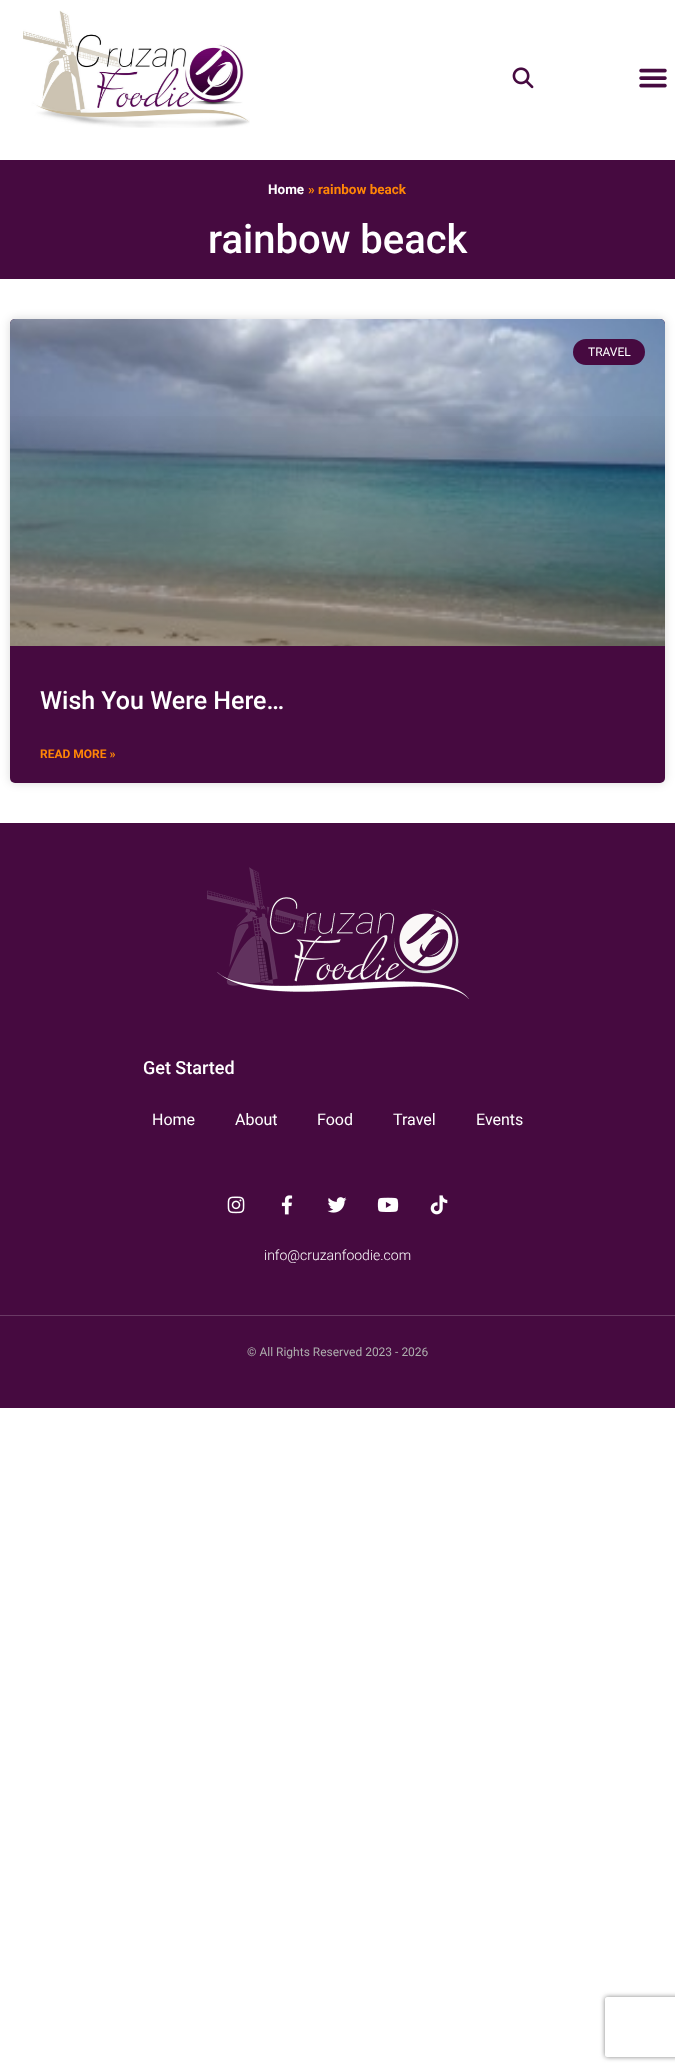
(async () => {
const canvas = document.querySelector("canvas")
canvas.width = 675
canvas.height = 2071
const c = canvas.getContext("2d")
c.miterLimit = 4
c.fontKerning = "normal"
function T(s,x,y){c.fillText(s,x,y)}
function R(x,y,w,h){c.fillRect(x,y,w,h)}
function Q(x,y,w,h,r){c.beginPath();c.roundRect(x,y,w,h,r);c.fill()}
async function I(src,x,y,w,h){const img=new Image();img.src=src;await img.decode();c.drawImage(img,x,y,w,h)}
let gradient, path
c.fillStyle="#fff"
R(0,0,675,2071)
await I("1.png",23,10,227,118)
await I("2.png",512,67,22,22)
await I("3.png",639,68,28,20)
c.fillStyle="#460a40"
R(0,160,675,119)
c.font="bold 13.5px Roboto"
c.fillStyle="#fff"
T("Home",268,194)
c.fillStyle="#ff8606"
T("» rainbow beack",308,194)
c.font="500 40px Roboto"
c.fillStyle="#fff"
T("rainbow beack",208,253)
c.fillStyle="#00000026"
c.filter="blur(5px)"
c.beginPath()
c.roundRect(10,319,655,464,5)
c.fill()
c.filter="none"
c.fillStyle="#460a40"
Q(10,319,655,464,5)
await I("4.png",10,319,655,327)
gradient = c.createLinearGradient(338,646,338,319)
gradient.addColorStop(0,"#00000059")
gradient.addColorStop(.75,"#00000000")
c.fillStyle = gradient
R(10,416,655,230)
c.fillStyle="#460a40"
Q(573,339,72,26,13)
c.font="12px Roboto"
c.fillStyle="#fff"
T("TRAVEL",588,356)
c.font="500 25px Roboto"
T("Wish You Were Here…",40,709)
c.font="bold 12px Roboto"
c.fillStyle="#ff8606"
T("READ MORE »",40,758)
c.fillStyle="#460a40"
R(0,823,675,492)
await I("5.png",207,867,262,132)
c.font="500 18px Roboto"
c.fillStyle="#fff"
T("Get Started",143,1074)
c.font="16px Roboto"
T("Home",152,1125)
T("About",235,1125)
T("Food",317,1125)
T("Travel",393,1125)
T("Events",476,1125)
await I("6.png",227,1196,18,18)
await I("7.png",281,1195,12,20)
await I("8.png",327,1197,20,16)
await I("9.png",377,1197,22,15)
await I("10.png",430,1195,18,20)
c.font="300 14px Roboto"
T("info@cruzanfoodie.com",264,1260)
c.fillStyle="#460a40"
R(0,1316,675,92)
c.fillStyle="#693964"
R(0,1315,675,1)
c.font="12px Roboto"
c.fillStyle="#adadad"
T("© All Rights Reserved 2023 - 2026",247,1356)
c.save()
path = new Path2D("M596 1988h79v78h-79zm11 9h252c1 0 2 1 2 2v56c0 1-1 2-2 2h-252c-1 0-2-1-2-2v-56c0-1 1-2 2-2z")
c.clip(path,"evenodd")
c.fillStyle="#808080"
c.filter="blur(2.5px)"
c.beginPath()
c.roundRect(605,1997,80,60,2)
c.fill()
c.filter="none"
c.restore()
})()
